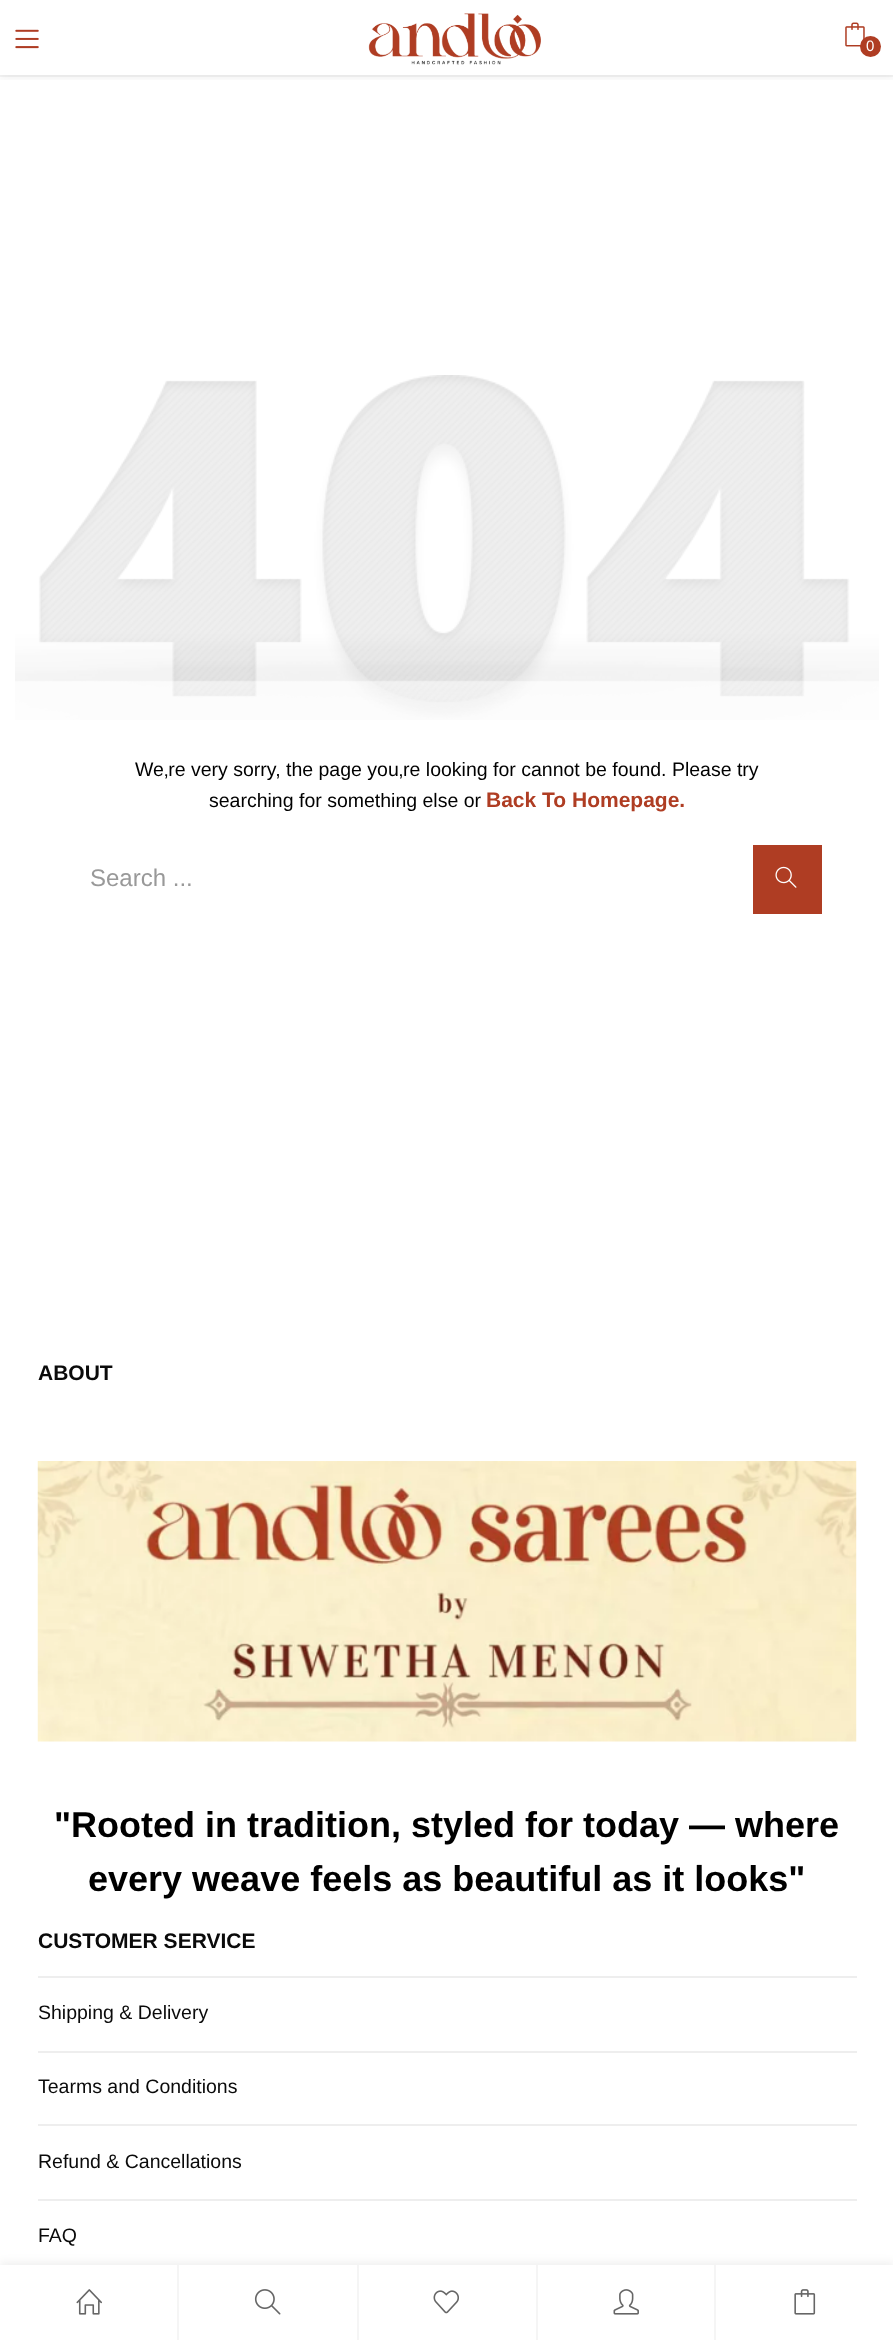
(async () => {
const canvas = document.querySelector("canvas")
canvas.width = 893
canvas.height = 2340
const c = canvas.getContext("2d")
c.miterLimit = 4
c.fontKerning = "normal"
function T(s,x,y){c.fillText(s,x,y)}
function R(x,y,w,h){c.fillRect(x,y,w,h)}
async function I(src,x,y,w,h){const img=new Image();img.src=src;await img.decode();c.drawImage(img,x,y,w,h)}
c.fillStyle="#fff"
R(0,0,893,2340)
c.fillStyle="#f5f5f5"
R(0,75,893,2)
c.save()
c.beginPath()
c.rect(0,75,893,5)
c.clip()
c.fillStyle="#0000000f"
c.filter="blur(4.5px)"
c.beginPath()
c.rect(0,3,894,75)
c.fill()
c.filter="none"
c.restore()
await I("1.png",15,29,24,20)
await I("2.png",368,13,173,52)
await I("3.png",845,22,20,25)
c.fillStyle="#af3d23"
c.beginPath()
c.arc(870.5,46.5,10.5,0,7)
c.fill()
c.font="15px Liberation Sans"
c.fillStyle="#fff"
T("0",866,51)
await I("4.png",15,375,864,345)
c.font="19.5px Liberation Sans"
c.fillStyle="#000"
T("We‚re very sorry, the page you‚re looking for cannot be found. Please try",135,776)
T("searching for something else or",209,807)
c.font="bold 21px Liberation Sans"
c.fillStyle="#af3d23"
T("Back To Homepage.",486,807)
c.font="24px Liberation Sans"
c.fillStyle="#999"
T("Search ...",90,886)
c.fillStyle="#af3d23"
R(753,845,69,69)
await I("5.png",775,866,22,22)
c.font="bold 21px Liberation Sans"
c.fillStyle="#0a0a0a"
T("ABOUT",38,1380)
await I("6.png",37,1461,820,281)
c.font="bold 36px Liberation Sans"
c.fillStyle="#000"
T("\"Rooted in tradition, styled for today — where",54,1837)
T("every weave feels as beautiful as it looks\"",88,1891)
c.font="bold 21px Liberation Sans"
c.fillStyle="#0a0a0a"
T("CUSTOMER SERVICE",38,1948)
c.fillStyle="#eee"
R(38,1976,819,2)
c.font="19.5px Liberation Sans"
c.fillStyle="#0a0a0a"
T("Shipping & Delivery",38,2019)
c.fillStyle="#eee"
R(38,2051,819,2)
c.fillStyle="#0a0a0a"
T("Tearms and Conditions",38,2093)
c.fillStyle="#eee"
R(38,2124,819,2)
c.fillStyle="#0a0a0a"
T("Refund & Cancellations",38,2168)
c.fillStyle="#eee"
R(38,2199,819,2)
c.fillStyle="#0a0a0a"
T("FAQ",38,2242)
c.fillStyle="#0000000f"
c.filter="blur(4.5px)"
c.beginPath()
c.rect(0,2262,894,75)
c.fill()
c.filter="none"
c.fillStyle="#fff"
R(0,2265,893,75)
c.fillStyle="#f5f5f5"
R(177,2265,2,75)
await I("7.png",76,2289,26,26)
R(357,2265,2,75)
await I("8.png",254,2289,27,26)
R(536,2265,2,75)
await I("9.png",433,2290,26,24)
R(714,2265,2,75)
await I("10.png",613,2289,26,26)
await I("11.png",794,2289,22,26)
})()
